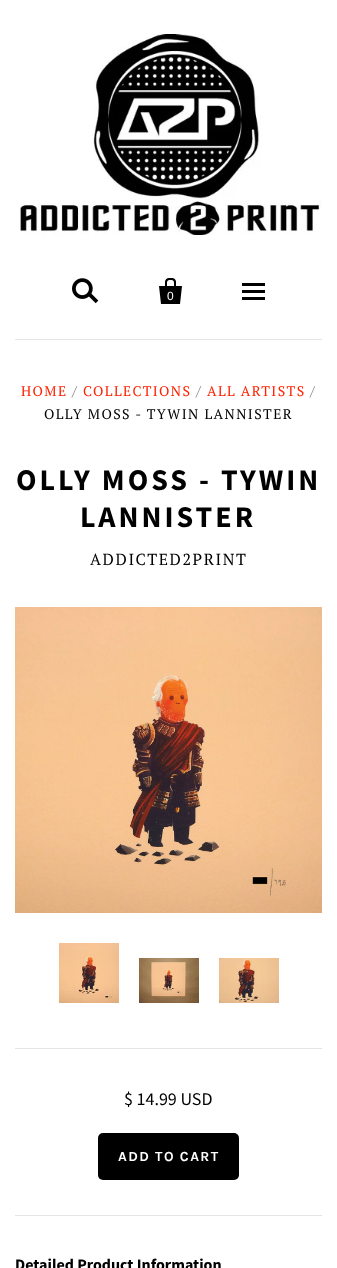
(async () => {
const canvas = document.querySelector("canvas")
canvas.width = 337
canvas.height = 1268
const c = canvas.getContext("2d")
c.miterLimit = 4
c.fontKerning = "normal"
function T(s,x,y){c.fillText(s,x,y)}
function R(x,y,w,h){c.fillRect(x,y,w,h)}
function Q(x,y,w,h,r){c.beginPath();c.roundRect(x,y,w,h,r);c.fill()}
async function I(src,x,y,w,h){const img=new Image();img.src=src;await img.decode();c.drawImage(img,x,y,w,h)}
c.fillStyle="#fff"
R(0,0,337,1268)
c.fillStyle="#e5e5e5"
R(15,339,307,1)
await I("1.png",19,34,303,201)
await I("2.png",72,278,27,26)
await I("3.png",159,278,23,26)
c.font="12px Liberation Sans"
c.fillStyle="#fff"
T("0",167,300)
c.fillStyle="#000"
R(242,290,23,3)
R(242,283,23,3)
R(242,297,23,3)
c.letterSpacing="1.4px"
c.font="14px PT Serif"
c.fillStyle="#ff2100"
T("HOME",21,396)
c.fillStyle="#7f7f7f"
T("/",72,396)
c.fillStyle="#ff2100"
T("COLLECTIONS",83,396)
c.fillStyle="#7f7f7f"
T("/",196,396)
c.fillStyle="#ff2100"
T("ALL ARTISTS",207,396)
c.fillStyle="#7f7f7f"
T("/",310,396)
c.fillStyle="#000"
T("OLLY MOSS - TYWIN LANNISTER",44,419)
c.letterSpacing="3px"
c.font="bold 30px Source Sans Pro"
T("OLLY MOSS - TYWIN",16,490)
T("LANNISTER",80,527)
c.letterSpacing="1.6px"
c.font="16px PT Serif"
T("ADDICTED2PRINT",90,565)
await I("4.png",15,607,307,306)
await I("5.png",59,943,60,60)
await I("6.png",139,958,60,45)
await I("7.png",219,958,60,45)
c.fillStyle="#e5e5e5"
R(15,1048,307,1)
c.letterSpacing="0px"
c.font="18px Source Sans Pro"
c.fillStyle="#000"
T("$ 14.99 USD",124,1105)
Q(98,1133,141,47,5)
c.letterSpacing="1.4px"
c.font="bold 14px Karla"
c.fillStyle="#fff"
T("ADD TO CART",118,1161)
c.fillStyle="#e5e5e5"
R(15,1215,307,1)
c.letterSpacing="0px"
c.font="bold 16px Source Sans Pro"
c.fillStyle="#000"
T("Detailed Product Information",15,1270)
})()
